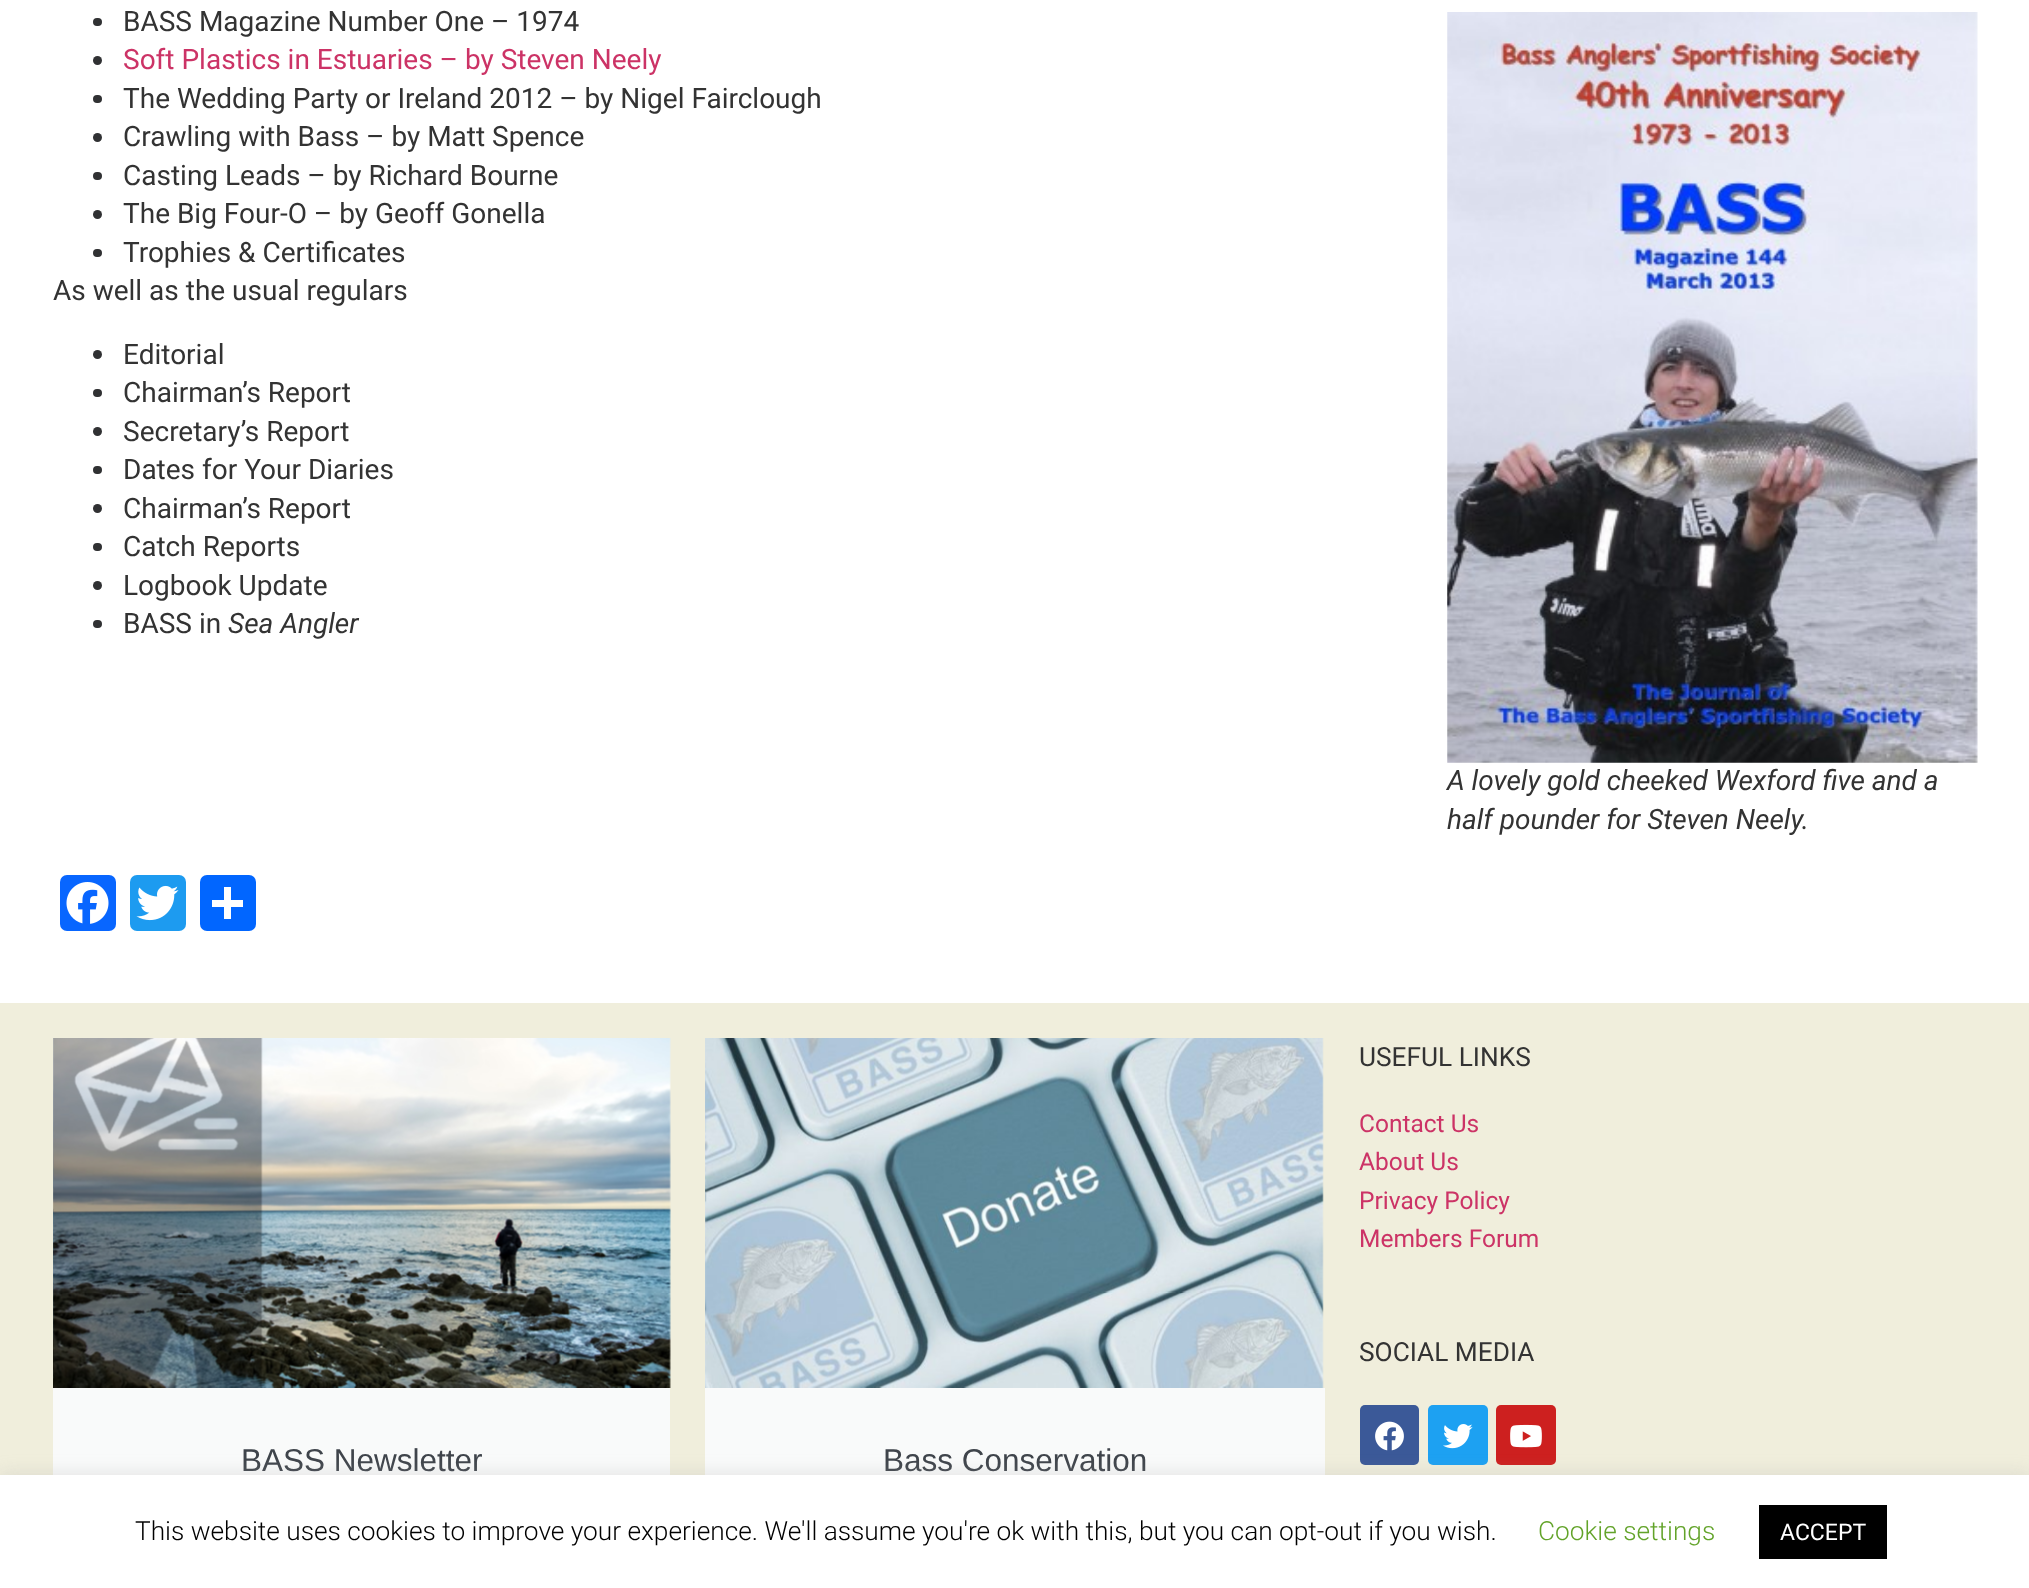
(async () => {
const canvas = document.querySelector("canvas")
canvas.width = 2029
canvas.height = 1588
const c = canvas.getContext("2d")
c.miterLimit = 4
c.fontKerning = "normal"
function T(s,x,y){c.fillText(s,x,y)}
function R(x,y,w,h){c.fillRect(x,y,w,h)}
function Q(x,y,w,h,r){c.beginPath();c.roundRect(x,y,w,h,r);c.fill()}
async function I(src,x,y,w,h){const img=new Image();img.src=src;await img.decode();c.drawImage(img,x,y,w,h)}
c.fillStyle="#fff"
R(0,0,2029,1588)
c.fillStyle="#303133"
Q(93,18,9,8,4)
c.font="28px Roboto"
c.fillStyle="#333"
T("BASS Magazine Number One – 1974",123,31)
c.fillStyle="#303133"
c.beginPath()
c.arc(97.5,60.5,4.5,0,7)
c.fill()
c.fillStyle="#c36"
T("Soft Plastics in Estuaries – by Steven Neely",123,69)
c.fillStyle="#303133"
Q(93,95,9,8,4)
c.fillStyle="#333"
T("The Wedding Party or Ireland 2012 – by Nigel Fairclough",123,108)
c.fillStyle="#303133"
c.beginPath()
c.arc(97.5,137.5,4.5,0,7)
c.fill()
c.fillStyle="#333"
T("Crawling with Bass – by Matt Spence",123,146)
c.fillStyle="#303133"
Q(93,172,9,8,4)
c.fillStyle="#333"
T("Casting Leads – by Richard Bourne",123,185)
c.fillStyle="#303133"
c.beginPath()
c.arc(97.5,214.5,4.5,0,7)
c.fill()
c.fillStyle="#333"
T("The Big Four-O – by Geoff Gonella",123,223)
c.fillStyle="#303133"
Q(93,249,9,8,4)
c.fillStyle="#333"
T("Trophies & Certificates",123,262)
T("As well as the usual regulars",53,300)
c.fillStyle="#303133"
c.beginPath()
c.arc(97.5,354.5,4.5,0,7)
c.fill()
c.fillStyle="#333"
T("Editorial",123,364)
c.fillStyle="#303133"
Q(93,389,9,8,4)
c.fillStyle="#333"
T("Chairman’s Report",123,402)
c.fillStyle="#303133"
c.beginPath()
c.arc(97.5,431.5,4.5,0,7)
c.fill()
c.fillStyle="#333"
T("Secretary’s Report",123,441)
c.fillStyle="#303133"
Q(93,466,9,8,4)
c.fillStyle="#333"
T("Dates for Your Diaries",123,479)
c.fillStyle="#303133"
c.beginPath()
c.arc(97.5,508.5,4.5,0,7)
c.fill()
c.fillStyle="#333"
T("Chairman’s Report",123,518)
c.fillStyle="#303133"
Q(93,543,9,8,4)
c.fillStyle="#333"
T("Catch Reports",123,556)
c.fillStyle="#303133"
c.beginPath()
c.arc(97.5,585.5,4.5,0,7)
c.fill()
c.fillStyle="#333"
T("Logbook Update",123,595)
c.fillStyle="#303133"
Q(93,620,9,8,4)
c.fillStyle="#333"
T("BASS in",123,633)
c.font="italic 28px Roboto"
T("Sea Angler",228,633)
await I("1.png",1447,12,531,751)
T("A lovely gold cheeked Wexford five and a",1447,790)
T("half pounder for Steven Neely.",1447,829)
c.fillStyle="#0866ff"
Q(60,875,56,56,7)
await I("2.png",66,882,43,42)
c.fillStyle="#1d9bf0"
Q(130,875,56,56,7)
await I("3.png",136,885,43,36)
c.fillStyle="#0166ff"
Q(200,875,56,56,7)
c.fillStyle="#fff"
R(224,887,7,32)
R(212,900,31,7)
c.fillStyle="#f0eedc"
R(0,1003,2029,472)
c.font="26.25px Roboto"
c.fillStyle="#333"
T("USEFUL LINKS",1359,1066)
c.font="24.5px Roboto"
c.fillStyle="#c36"
T("Contact Us",1359,1132)
T("About Us",1359,1170)
T("Privacy Policy",1359,1209)
T("Members Forum",1359,1247)
c.font="26.25px Roboto"
c.fillStyle="#333"
T("SOCIAL MEDIA",1359,1361)
c.fillStyle="#3b5998"
Q(1360,1405,59,60,5)
await I("4.png",1375,1421,29,30)
c.fillStyle="#1da1f2"
Q(1428,1405,60,60,5)
await I("5.png",1443,1424,30,25)
c.fillStyle="#cd201f"
Q(1496,1405,60,60,5)
await I("6.png",1510,1424,32,24)
await I("7.png",53,1038,618,350)
c.fillStyle="#f9fafa"
R(53,1388,617,87)
c.font="31.5px Liberation Sans"
c.fillStyle="#3f444b"
T("BASS Newsletter",241,1471)
await I("8.png",705,1038,619,350)
c.fillStyle="#f9fafa"
R(705,1388,620,87)
c.fillStyle="#3f444b"
T("Bass Conservation",883,1471)
c.fillStyle="#acabab4d"
c.filter="blur(9px)"
c.beginPath()
c.rect(0,1474,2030,113)
c.fill()
c.filter="none"
c.fillStyle="#fff"
R(0,1475,2029,113)
c.font="300 26.25px Roboto"
c.fillStyle="#000"
T("This website uses cookies to improve your experience. We'll assume you're ok with this, but you can opt-out if you wish.",135,1540)
c.fillStyle="#62a329"
T("Cookie settings",1538,1540)
c.fillStyle="#000"
R(1759,1505,128,54)
c.font="23px Roboto"
c.fillStyle="#fff"
T("ACCEPT",1780,1540)
})()
